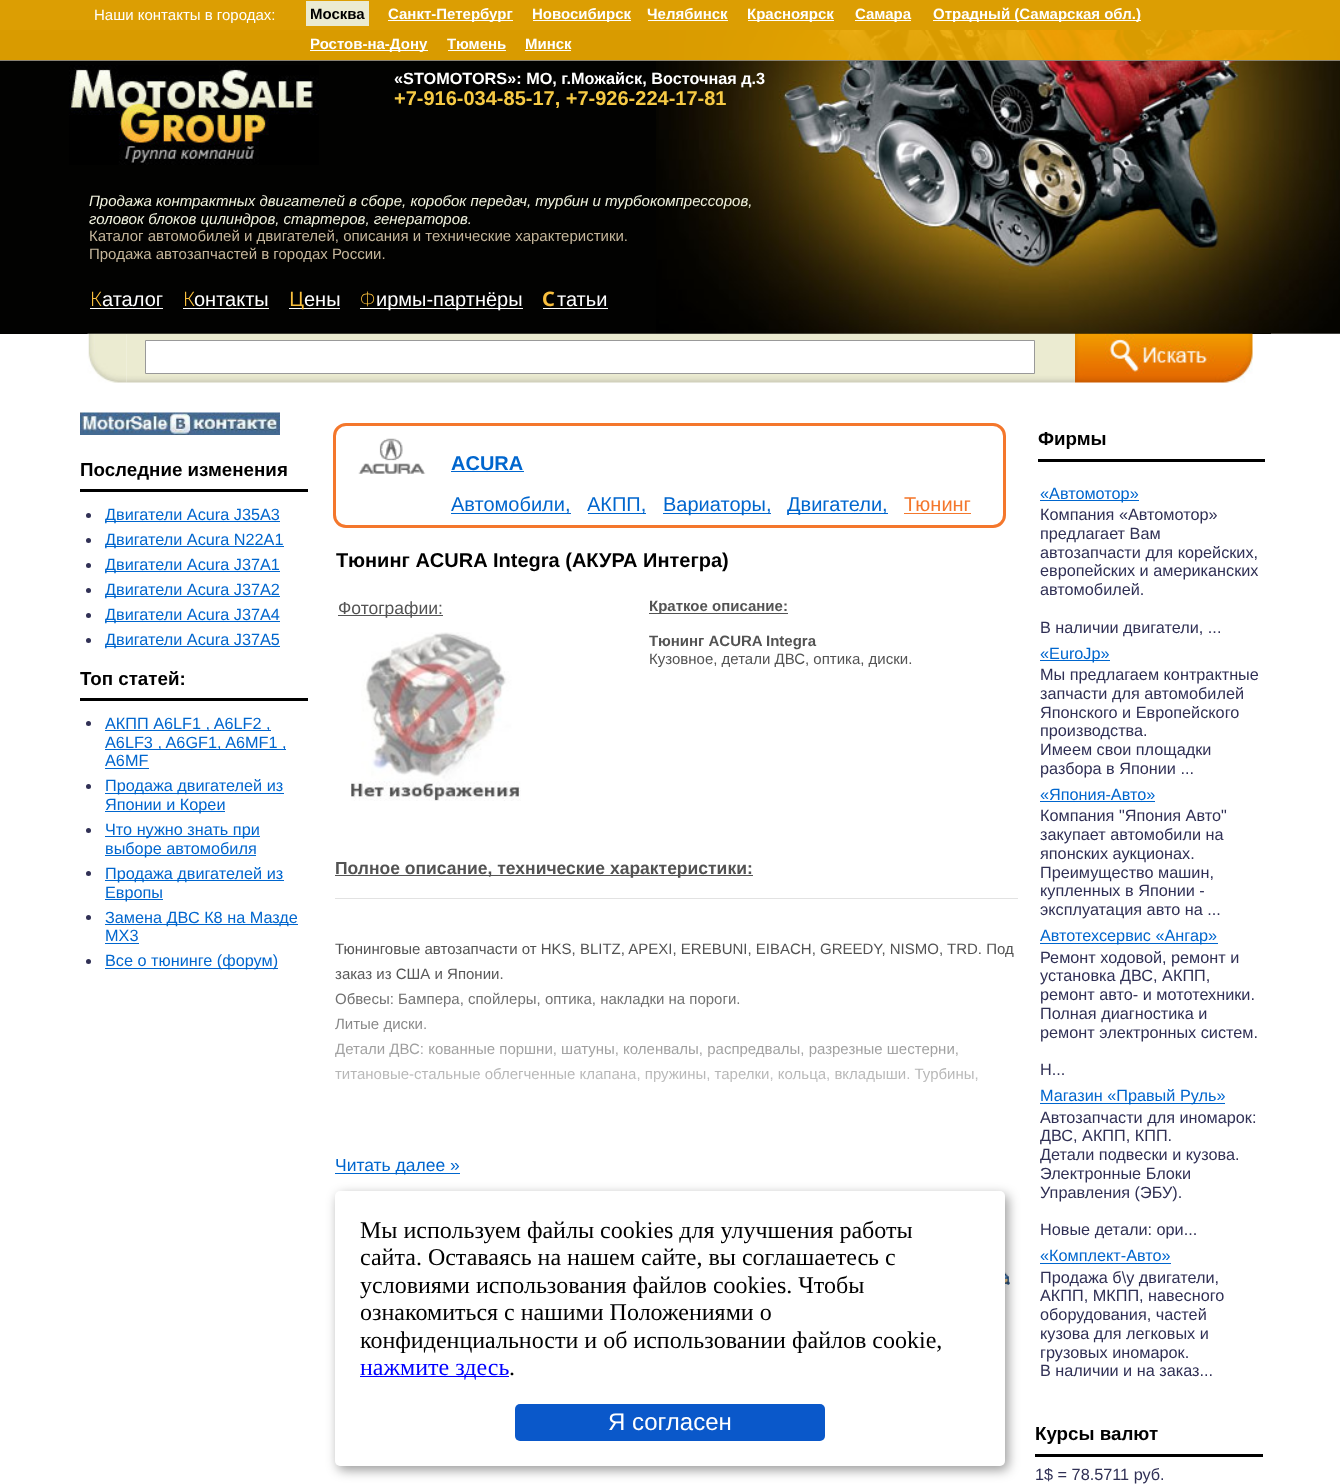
(async () => {
const canvas = document.querySelector("canvas")
canvas.width = 1340
canvas.height = 1484
const c = canvas.getContext("2d")
c.miterLimit = 4
c.fontKerning = "normal"
function T(s,x,y){c.fillText(s,x,y)}
function R(x,y,w,h){c.fillRect(x,y,w,h)}
function Q(x,y,w,h,r){c.beginPath();c.roundRect(x,y,w,h,r);c.fill()}
async function I(src,x,y,w,h){const img=new Image();img.src=src;await img.decode();c.drawImage(img,x,y,w,h)}
let gradient
c.fillStyle="#fff"
R(0,0,1340,1484)
c.fillStyle="#202020"
R(0,0,1340,30)
c.fillStyle="#020201"
R(0,30,1271,304)
await I("2.png",656,30,684,304)
c.fillStyle="#f1ac00e6"
R(0,0,1340,61)
c.fillStyle="#808080e6"
R(0,60,1340,1)
c.font="15px Liberation Sans"
c.fillStyle="#fff"
T("Наши контакты в городах:",94,20)
c.fillStyle="#ebebd2"
R(306,1,63,25)
c.font="bold 15px Liberation Sans"
c.fillStyle="#000"
T("Москва",310,19)
c.fillStyle="#fff"
R(388,20,125,1)
T("Санкт-Петербург",388,19)
R(533,20,98,1)
T("Новосибирск",532,19)
T("Челябинск",647,19)
R(648,20,80,1)
R(748,20,86,1)
T("Красноярск",747,19)
R(855,20,56,1)
T("Самара",855,19)
R(933,20,208,1)
T("Отрадный (Самарская обл.)",933,19)
R(310,50,118,1)
T("Ростов-на-Дону",310,49)
T("Тюмень",447,49)
R(448,50,58,1)
T("Минск",525,49)
R(525,50,46,1)
c.font="bold 16.25px Liberation Sans"
T("«STOMOTORS»: МО, г.Можайск, Восточная д.3",394,84)
c.font="bold 20px Liberation Sans"
c.fillStyle="#f6ca45"
T("+7-916-034-85-17, +7-926-224-17-81",394,105)
await I("1.png",69,65,250,100)
c.font="italic 15px Liberation Sans"
c.fillStyle="#f1f3df"
T("Продажа контрактных двигателей в сборе, коробок передач, турбин и турбокомпрессоров,",89,206)
T("головок блоков цилиндров, стартеров, генераторов.",89,224)
c.font="15px Liberation Sans"
c.fillStyle="#c5b69b"
T("Каталог автомобилей и двигателей, описания и технические характеристики.",89,241)
T("Продажа автозапчастей в городах России.",89,259)
c.font="300 20px Noto Sans"
c.fillStyle="#f9bf3d"
T("К",90,306)
c.fillStyle="#fff"
R(90,308,73,1)
c.font="20px Liberation Sans"
T("аталог",102,306)
c.font="300 20px Noto Sans"
c.fillStyle="#f9bf3d"
T("К",183,306)
c.fillStyle="#fff"
R(183,308,86,1)
c.font="20px Liberation Sans"
T("онтакты",194,306)
R(289,308,51,1)
c.font="20px Noto Sans"
c.fillStyle="#f9bf3d"
T("Ц",289,306)
c.font="20px Liberation Sans"
c.fillStyle="#fff"
T("ены",304,306)
c.font="200 20px Noto Sans"
c.fillStyle="#f9bf3d"
T("Ф",360,306)
c.fillStyle="#fff"
R(360,308,163,1)
c.font="20px Liberation Sans"
T("ирмы-партнёры",376,306)
c.font="bold 20px Noto Sans"
c.fillStyle="#f9bf3d"
T("С",542,306)
c.fillStyle="#fff"
R(543,308,65,1)
c.font="20px Liberation Sans"
T("татьи",557,306)
await I("3.png",87,333,40,50)
await I("4.png",126,333,949,50)
c.beginPath()
c.rect(145.5,340.5,889,33)
c.fill()
c.strokeStyle="#999"
c.stroke()
await I("5.png",1075,333,178,50)
await I("6.png",80,412,200,23)
c.font="bold 18.75px Liberation Sans"
c.fillStyle="#000"
T("Последние изменения",80,476)
R(80,489,228,3)
c.fillStyle="#303055"
c.beginPath()
c.arc(88.5,515.5,2.5,0,7)
c.fill()
c.fillStyle="#0066ce"
R(105,521,175,1)
c.font="16.25px Liberation Sans"
T("Двигатели Acura J35A3",105,520)
c.fillStyle="#303055"
c.beginPath()
c.arc(88.5,540.5,2.5,0,7)
c.fill()
c.fillStyle="#0066ce"
R(105,546,179,1)
T("Двигатели Acura N22A1",105,545)
c.fillStyle="#303055"
c.beginPath()
c.arc(88.5,565.5,2.5,0,7)
c.fill()
c.fillStyle="#0066ce"
R(105,571,175,1)
T("Двигатели Acura J37A1",105,570)
c.fillStyle="#303055"
c.beginPath()
c.arc(88.5,590.5,2.5,0,7)
c.fill()
c.fillStyle="#0066ce"
R(105,596,175,1)
T("Двигатели Acura J37A2",105,595)
c.fillStyle="#303055"
c.beginPath()
c.arc(88.5,615.5,2.5,0,7)
c.fill()
c.fillStyle="#0066ce"
R(105,621,175,1)
T("Двигатели Acura J37A4",105,620)
c.fillStyle="#303055"
c.beginPath()
c.arc(88.5,640.5,2.5,0,7)
c.fill()
c.fillStyle="#0066ce"
R(105,646,175,1)
T("Двигатели Acura J37A5",105,645)
c.font="bold 18.75px Liberation Sans"
c.fillStyle="#000"
T("Топ статей:",80,685)
R(80,698,228,3)
c.fillStyle="#303055"
c.beginPath()
c.arc(88.5,723.5,2.5,0,7)
c.fill()
c.fillStyle="#0066ce"
R(105,730,166,1)
c.font="16.25px Liberation Sans"
T("АКПП A6LF1 , A6LF2 ,",105,729)
R(105,749,181,1)
T("A6LF3 , A6GF1, A6MF1 ,",105,748)
T("A6MF",105,766)
R(105,768,44,1)
c.fillStyle="#303055"
c.beginPath()
c.arc(88.5,786.5,2.5,0,7)
c.fill()
c.fillStyle="#0066ce"
R(105,793,179,1)
T("Продажа двигателей из",105,791)
R(105,811,120,1)
T("Японии и Кореи",105,810)
c.fillStyle="#303055"
c.beginPath()
c.arc(88.5,830.5,2.5,0,7)
c.fill()
c.fillStyle="#0066ce"
R(105,836,155,1)
T("Что нужно знать при",105,835)
R(105,855,151,1)
T("выборе автомобиля",105,854)
c.fillStyle="#303055"
c.beginPath()
c.arc(88.5,873.5,2.5,0,7)
c.fill()
c.fillStyle="#0066ce"
R(105,880,179,1)
T("Продажа двигателей из",105,879)
R(105,899,58,1)
T("Европы",105,898)
c.fillStyle="#303055"
c.beginPath()
c.arc(88.5,917.5,2.5,0,7)
c.fill()
c.fillStyle="#0066ce"
R(105,924,193,1)
T("Замена ДВС К8 на Мазде",105,923)
T("MX3",105,941)
R(105,943,34,1)
c.fillStyle="#303055"
c.beginPath()
c.arc(88.5,961.5,2.5,0,7)
c.fill()
c.fillStyle="#0066ce"
R(105,968,173,1)
T("Все о тюнинге (форум)",105,966)
c.beginPath()
c.roundRect(334.5,424.5,670,102,11.5)
c.strokeStyle="#f4772c"
c.lineWidth=3
c.stroke()
await I("7.png",358,438,68,36)
c.font="bold 20px Liberation Sans"
T("ACURA",451,470)
R(451,471,73,1)
R(451,513,120,1)
c.font="20px Liberation Sans"
T("Автомобили,",451,511)
R(588,513,58,1)
T("АКПП,",587,511)
R(663,513,108,1)
T("Вариаторы,",663,511)
R(788,513,100,1)
T("Двигатели,",787,511)
c.fillStyle="#f4772c"
T("Тюнинг",904,511)
R(904,513,67,1)
c.font="bold 20px Liberation Sans"
c.fillStyle="#000"
T("Тюнинг ACURA",336,567)
T("Integra (АКУРА Интегра)",493,567)
c.fillStyle="#535353"
R(338,615,105,1)
c.font="17.5px Liberation Sans"
T("Фотографии:",338,614)
await I("8.png",351,632,170,169)
R(649,613,139,1)
c.font="bold 15px Liberation Sans"
T("Краткое описание:",649,611)
T("Тюнинг ACURA",649,646)
T("Integra",766,646)
c.font="15px Liberation Sans"
T("Кузовное, детали ДВС, оптика, диски.",649,664)
R(335,875,418,1)
c.font="bold 17.5px Liberation Sans"
T("Полное описание, технические характеристики:",335,874)
c.fillStyle="#e2e2e2"
R(335,898,683,1)
c.font="15px Liberation Sans"
c.fillStyle="#535353"
T("Тюнинговые автозапчасти от HKS, BLITZ, APEXI, EREBUNI, EIBACH, GREEDY, NISMO, TRD. Под",335,954)
T("заказ из США и Японии.",335,979)
T("Обвесы: Бампера, спойлеры, оптика, накладки на пороги.",335,1004)
T("Литые диски.",335,1029)
T("Детали ДВС: кованные поршни, шатуны, коленвалы, распредвалы, разрезные шестерни,",335,1054)
T("титановые-стальные облегченные клапана, пружины, тарелки, кольца, вкладыши. Турбины,",335,1079)
gradient = c.createLinearGradient(676,968,676,1149)
gradient.addColorStop(0,"#ffffff00")
gradient.addColorStop(1,"#fff")
c.fillStyle = gradient
R(335,972,643,111)
c.fillStyle="#0066ce"
R(335,1173,125,1)
c.font="17.5px Liberation Sans"
T("Читать далее »",335,1171)
await I("9.png",1005,1272,5,13)
c.font="bold 18.75px Liberation Sans"
c.fillStyle="#000"
T("Фирмы",1038,445)
R(1038,459,227,3)
c.fillStyle="#0066ce"
R(1040,500,99,1)
c.font="16.25px Liberation Sans"
T("«Автомотор»",1040,499)
c.fillStyle="#303055"
T("Компания «Автомотор»",1040,520)
T("предлагает Вам",1040,539)
T("автозапчасти для корейских,",1040,558)
T("европейских и американских",1040,576)
T("автомобилей.",1040,595)
T("В наличии двигатели, ...",1040,633)
c.fillStyle="#0066ce"
R(1040,660,70,1)
T("«EuroJp»",1040,659)
c.fillStyle="#303055"
T("Мы предлагаем контрактные",1040,680)
T("запчасти для автомобилей",1040,699)
T("Японского и Европейского",1040,718)
T("производства.",1040,736)
T("Имеем свои площадки",1040,755)
T("разбора в Японии ...",1040,774)
c.fillStyle="#0066ce"
T("«Япония-Авто»",1040,800)
R(1040,801,115,1)
c.fillStyle="#303055"
T("Компания \"Япония Авто\"",1040,821)
T("закупает автомобили на",1040,840)
T("японских аукционах.",1040,859)
T("Преимущество машин,",1040,878)
T("купленных в Японии -",1040,896)
T("эксплуатация авто на ...",1040,915)
c.fillStyle="#0066ce"
R(1040,943,178,1)
T("Автотехсервис «Ангар»",1040,941)
c.fillStyle="#303055"
T("Ремонт ходовой, ремонт и",1040,963)
T("установка ДВС, АКПП,",1040,981)
T("ремонт авто- и мототехники.",1040,1000)
T("Полная диагностика и",1040,1019)
T("ремонт электронных систем.",1040,1038)
T("Н...",1040,1075)
c.fillStyle="#0066ce"
R(1040,1103,185,1)
T("Магазин «Правый Руль»",1040,1101)
c.fillStyle="#303055"
T("Автозапчасти для иномарок:",1040,1123)
T("ДВС, АКПП, КПП.",1040,1141)
T("Детали подвески и кузова.",1040,1160)
T("Электронные Блоки",1040,1179)
T("Управления (ЭБУ).",1040,1198)
T("Новые детали: ори...",1040,1235)
c.fillStyle="#0066ce"
T("«Комплект-Авто»",1040,1261)
R(1040,1263,131,1)
c.fillStyle="#303055"
T("Продажа б\\у двигатели,",1040,1283)
T("АКПП, МКПП, навесного",1040,1301)
T("оборудования, частей",1040,1320)
T("кузова для легковых и",1040,1339)
T("грузовых иномарок.",1040,1358)
T("В наличии и на заказ...",1040,1376)
c.font="bold 18.75px Liberation Sans"
c.fillStyle="#000"
T("Курсы валют",1035,1440)
R(1035,1454,228,3)
c.font="16.25px Liberation Sans"
c.fillStyle="#303055"
T("1$ = 78.5711 руб.",1035,1480)
c.fillStyle="#00000066"
c.filter="blur(6px)"
c.beginPath()
c.roundRect(338,1195,670,275,5)
c.fill()
c.filter="none"
c.fillStyle="#fff"
Q(335,1191,670,275,5)
c.font="24px Liberation Serif"
c.fillStyle="#000"
T("Мы используем файлы cookies для улучшения работы",360,1238)
T("сайта. Оставаясь на нашем сайте, вы соглашаетесь с",360,1265)
T("условиями использования файлов cookies. Чтобы",360,1293)
T("ознакомиться с нашими Положениями о",360,1320)
T("конфиденциальности и об использовании",360,1348)
T("файлов cookie,",792,1348)
c.fillStyle="#00f"
R(360,1376,149,1)
T("нажмите здесь",360,1375)
c.fillStyle="#000"
T(".",509,1375)
c.fillStyle="#0a58ca"
Q(515,1404,310,37,5)
c.font="24px Liberation Sans"
c.fillStyle="#fff"
T("Я согласен",608,1430)
})()
